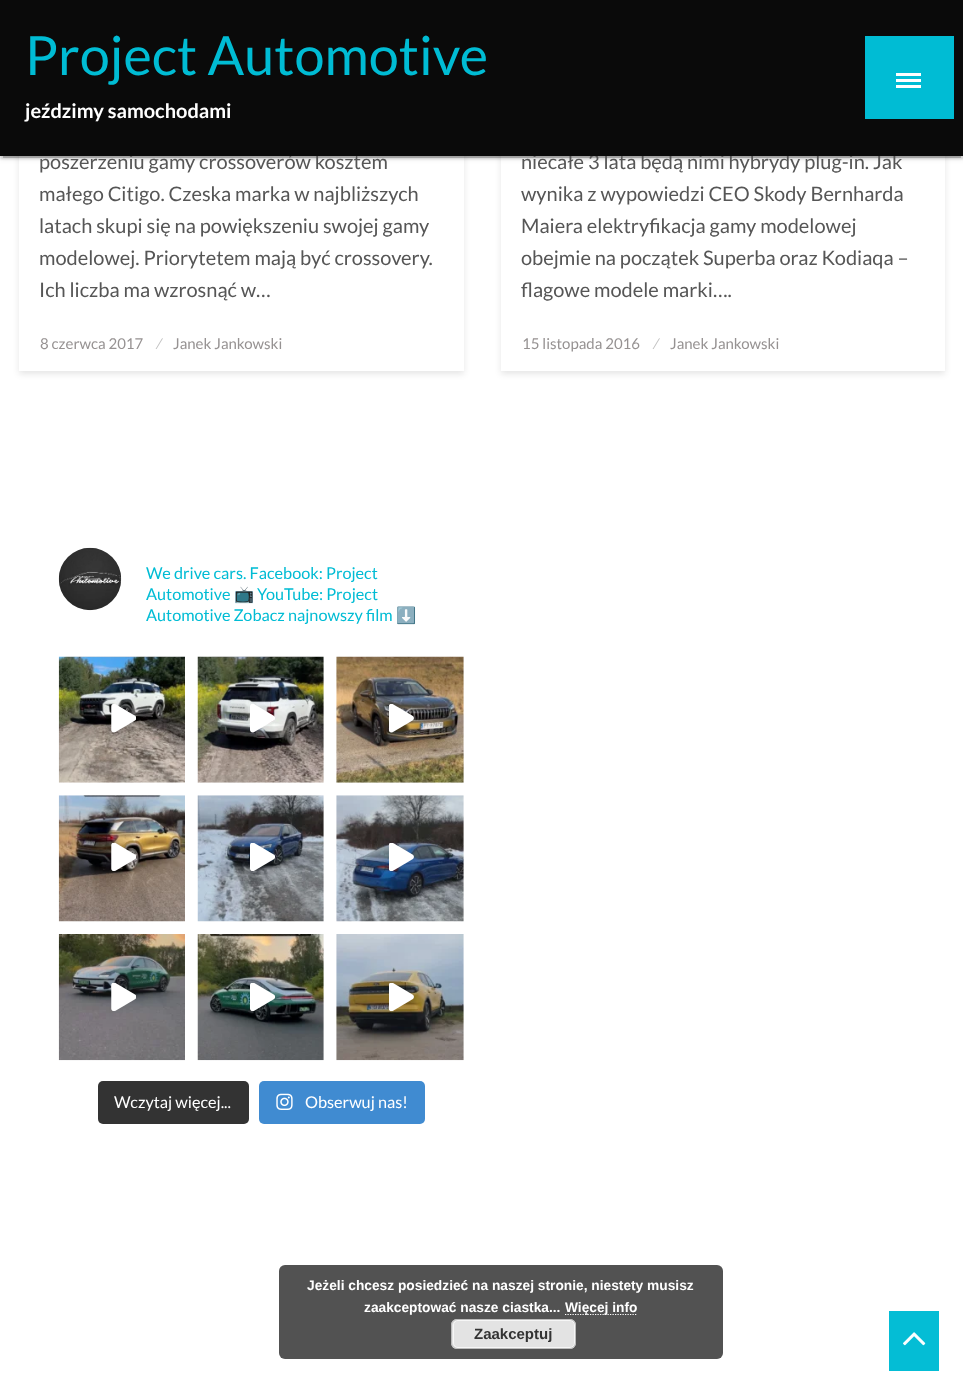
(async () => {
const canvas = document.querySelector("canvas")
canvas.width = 963
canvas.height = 1396
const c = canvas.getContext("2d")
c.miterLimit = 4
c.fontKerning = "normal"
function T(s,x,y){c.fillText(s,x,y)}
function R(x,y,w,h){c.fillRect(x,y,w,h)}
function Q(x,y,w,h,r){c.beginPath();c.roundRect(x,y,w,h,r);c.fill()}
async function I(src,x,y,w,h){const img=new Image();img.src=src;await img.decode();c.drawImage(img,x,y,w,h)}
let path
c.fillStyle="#fff"
R(0,0,963,1396)
c.fillStyle="#0000001a"
c.filter="blur(3px)"
c.beginPath()
c.rect(19,-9,445,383)
c.fill()
c.filter="none"
c.fillStyle="#fff"
R(19,156,445,215)
c.fillStyle="#0000001a"
c.filter="blur(3px)"
c.beginPath()
c.rect(501,-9,444,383)
c.fill()
c.filter="none"
c.fillStyle="#fff"
R(501,156,444,215)
c.fillStyle="#0000001f"
c.filter="blur(3px)"
c.beginPath()
c.rect(0,1,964,157)
c.fill()
c.filter="none"
c.fillStyle="#00000033"
c.filter="blur(0.5px)"
c.beginPath()
c.rect(3,6,958,152)
c.fill()
c.filter="none"
c.fillStyle="#00000024"
c.filter="blur(1px)"
c.beginPath()
c.rect(0,3,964,156)
c.fill()
c.filter="none"
c.font="20px Lato"
c.fillStyle="#565656"
T("poszerzeniu gamy crossoverów kosztem",39,169)
T("niecałe 3 lata będą nimi hybrydy plug-in. Jak",521,169)
c.fillStyle="#0a0a0a"
R(0,0,963,156)
c.font="54px Lato"
c.fillStyle="#00bcd4"
T("Project Automotive",25,75)
c.font="bold 20px Lato"
c.fillStyle="#fff"
T("jeździmy samochodami",25,118)
c.fillStyle="#00bcd4"
R(865,36,89,83)
c.fillStyle="#fff"
R(896,73,25,3)
R(896,79,25,3)
R(896,85,25,3)
c.font="20px Lato"
c.fillStyle="#565656"
T("małego Citigo. Czeska marka w najbliższych",39,201)
T("latach skupi się na powiększeniu swojej gamy",39,233)
T("modelowej. Priorytetem mają być crossovery.",39,265)
T("Ich liczba ma wzrosnąć w…",39,297)
c.font="15px Lato"
c.fillStyle="#969292"
T("8 czerwca 2017",40,349)
c.fillStyle="#c0c0c0"
T("⁄",157,349)
c.fillStyle="#969292"
T("Janek Jankowski",173,349)
c.font="20px Lato"
c.fillStyle="#565656"
T("wynika z wypowiedzi CEO Skody Bernharda",521,201)
T("Maiera elektryfikacja gamy modelowej",521,233)
T("obejmie na początek Superba oraz Kodiaqa –",521,265)
T("flagowe modele marki….",521,297)
c.font="15px Lato"
c.fillStyle="#969292"
T("15 listopada 2016",522,349)
c.fillStyle="#c0c0c0"
T("⁄",654,349)
c.fillStyle="#969292"
T("Janek Jankowski",670,349)
await I("1.png",58,547,64,64)
c.font="16.25px Lato"
c.fillStyle="#00bcd4"
T("We drive cars. Facebook: Project",146,579)
T("Automotive",146,600)
c.font="16.25px Noto Color Emoji"
T("📺",234,600)
c.font="16.25px Lato"
T("YouTube: Project",257,600)
T("Automotive Zobacz najnowszy film",146,621)
c.font="16.25px Noto Color Emoji"
T("⬇️",396,621)
await I("2.png",58,656,127,127)
await I("3.png",111,704,25,29)
await I("4.png",197,656,127,127)
await I("5.png",250,704,25,29)
await I("6.png",336,656,128,127)
await I("7.png",389,704,25,29)
await I("8.png",58,795,127,127)
await I("9.png",111,843,25,28)
await I("10.png",197,795,127,127)
await I("11.png",250,843,25,28)
await I("12.png",336,795,128,127)
await I("13.png",389,843,25,28)
await I("14.png",58,934,127,127)
await I("15.png",111,983,25,28)
await I("16.png",197,934,127,127)
await I("17.png",250,983,25,28)
await I("18.png",336,934,128,127)
await I("19.png",389,983,25,28)
c.fillStyle="#333"
Q(98,1081,151,43,5)
c.font="16.25px Lato"
c.fillStyle="#fff"
T("Wczytaj więcej...",114,1108)
c.fillStyle="#408bd1"
Q(259,1081,166,43,5)
await I("20.png",276,1093,17,17)
c.fillStyle="#fff"
T("Obserwuj nas!",305,1108)
c.fillStyle="#04bdd5"
R(889,1311,50,60)
await I("21.png",903,1332,23,14)
c.fillStyle="#525252"
Q(279,1265,444,94,6)
c.font="bold 13.75px Liberation Sans"
c.fillStyle="#fff"
T("Jeżeli chcesz posiedzieć na naszej stronie, niestety musisz",307,1290)
T("zaakceptować nasze ciastka...",364,1312)
path = new Path2D("M565 1314.5h72.5")
c.strokeStyle="#fff"
c.lineWidth=1.2
c.setLineDash([1.25,1.25])
c.stroke(path)
T("Więcej info",565,1312)
c.fillStyle="#e3e3e3"
Q(451,1319,125,30,6)
c.beginPath()
c.roundRect(453.5,1320.5,121,27,4.5)
c.strokeStyle="#f6f6f6"
c.lineWidth=1
c.setLineDash([])
c.stroke()
c.beginPath()
c.roundRect(451.5,1319.5,124,29,5.5)
c.strokeStyle="#bbb"
c.stroke()
c.font="bold 15px Liberation Sans"
c.fillStyle="#333"
T("Zaakceptuj",474,1339)
})()
